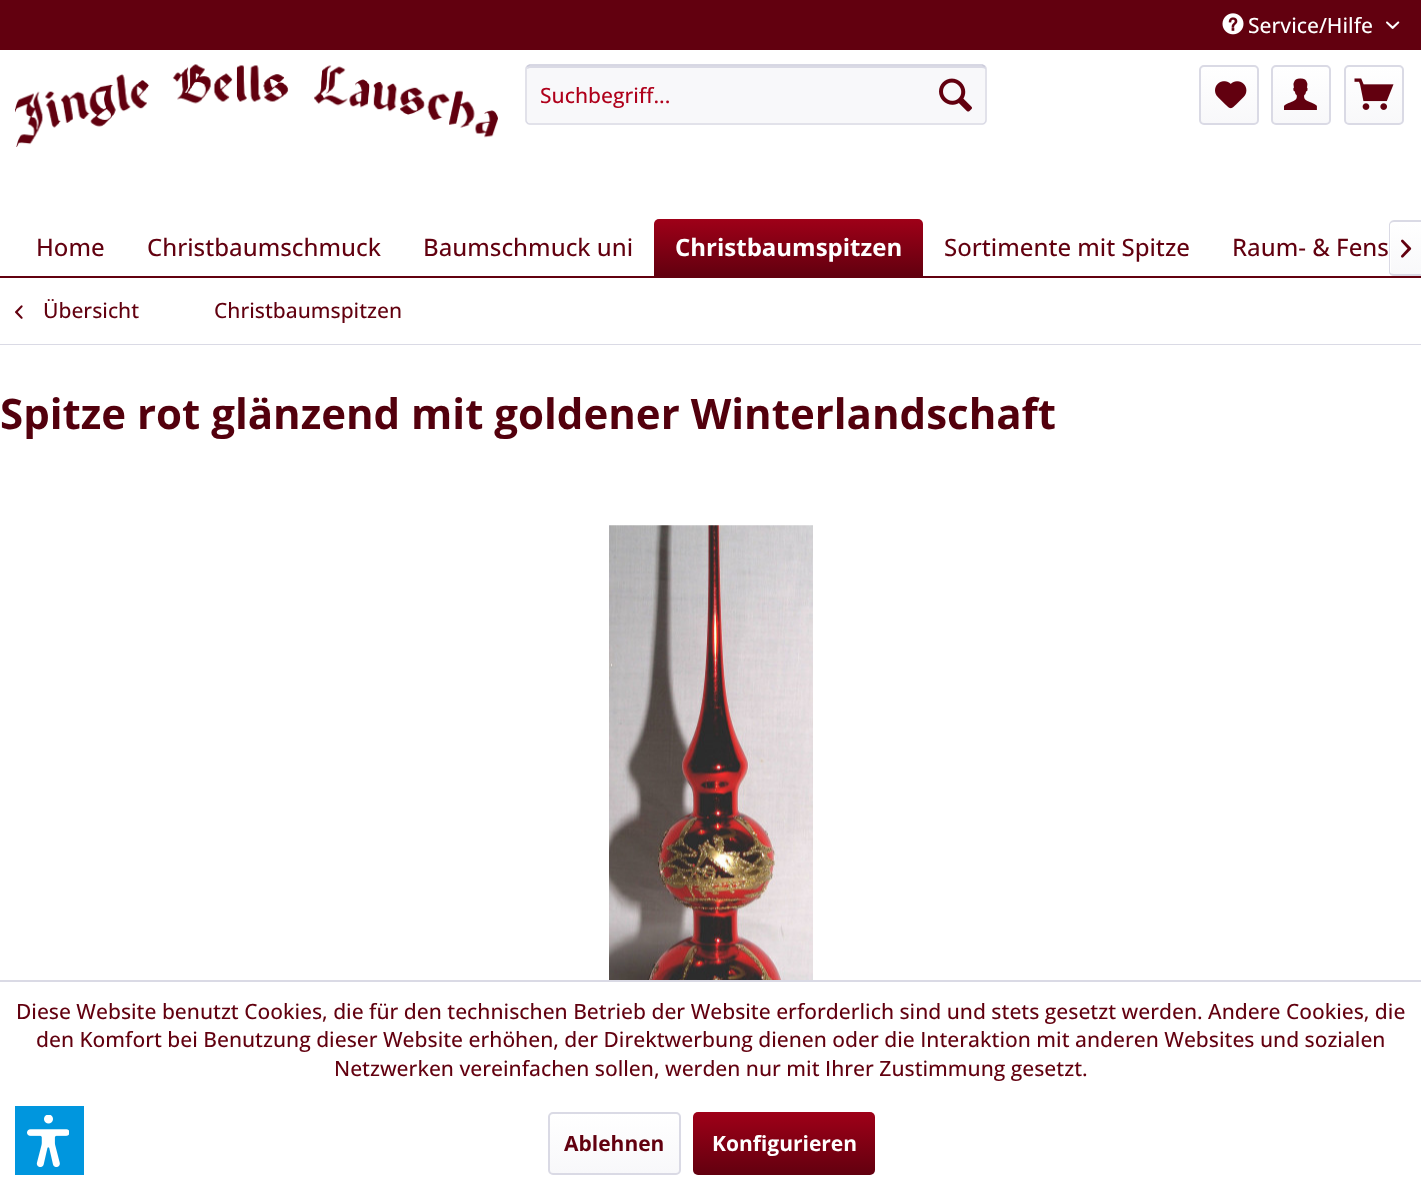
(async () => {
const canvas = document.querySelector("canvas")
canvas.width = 1421
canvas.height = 1189
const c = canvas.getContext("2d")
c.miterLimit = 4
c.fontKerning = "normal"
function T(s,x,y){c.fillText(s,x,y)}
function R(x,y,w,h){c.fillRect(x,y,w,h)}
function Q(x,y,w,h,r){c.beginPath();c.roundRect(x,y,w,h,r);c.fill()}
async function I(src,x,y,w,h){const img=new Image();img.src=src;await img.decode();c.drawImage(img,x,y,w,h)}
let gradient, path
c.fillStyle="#fff"
R(0,0,1421,1189)
c.fillStyle="#62000f"
R(0,0,1421,50)
await I("1.png",1222,13,22,22)
c.font="500 21px Open Sans"
c.fillStyle="#fff"
T("Service/Hilfe",1248,33)
await I("2.png",1386,21,14,8)
await I("3.png",15,64,483,83)
c.fillStyle="#f8f8fa"
Q(525,65,462,60,5)
c.fillStyle="#dadae5"
path = new Path2D("M530 68h452c2 0 4 1 4 2v-1c0-2-1-3-3-3h-453c-2 0-3 1-3 3z")
c.fill(path)
path = new Path2D("M527 66.5l2.5-1.5h453l2.5 1.5")
c.strokeStyle="#cbcbdb"
c.lineWidth=1.5
c.stroke(path)
path = new Path2D("M985 66.5c1 .5 1 1.5 1 2.5v51c0 1 0 2-1 2.5c-.5 1-1.5 1.5-2.5 1.5h-453c-1 0-2-.5-2.5-1.5c-1-.5-1-1.5-1-2.5v-51c0-1 0-2 1-2.5")
c.strokeStyle="#dadae5"
c.stroke(path)
c.fillStyle="#af001b"
T("Suchbegriff...",540,103)
await I("4.png",939,78,33,34)
gradient = c.createLinearGradient(1229,66,1229,123)
gradient.addColorStop(0,"#fff")
gradient.addColorStop(1,"#f8f8fa")
c.fillStyle = gradient
Q(1200,66,57,57,3)
c.beginPath()
c.roundRect(1200,66,58,58,4)
c.lineWidth=2
c.stroke()
await I("5.png",1215,81,32,28)
gradient = c.createLinearGradient(1301,66,1301,123)
gradient.addColorStop(0,"#fff")
gradient.addColorStop(1,"#f8f8fa")
c.fillStyle = gradient
Q(1272,66,57,57,3)
c.beginPath()
c.roundRect(1272,66,58,58,4)
c.stroke()
await I("6.png",1284,78,33,32)
gradient = c.createLinearGradient(1374,66,1374,123)
gradient.addColorStop(0,"#fff")
gradient.addColorStop(1,"#f8f8fa")
c.fillStyle = gradient
Q(1346,66,57,57,3)
c.beginPath()
c.roundRect(1345,66,58,58,4)
c.stroke()
await I("7.png",1354,78,40,32)
c.fillStyle="#62000f"
R(0,276,1421,2)
c.font="500 24px Open Sans"
T("Home",36,256)
T("Christbaumschmuck",147,256)
T("Baumschmuck uni",423,256)
gradient = c.createLinearGradient(788,219,788,276)
gradient.addColorStop(0,"#9f0018")
gradient.addColorStop(1,"#62000f")
c.fillStyle = gradient
c.beginPath()
c.roundRect(654,219,269,57,[5,5,0,0])
c.fill()
c.font="bold 24px Open Sans"
c.fillStyle="#fff"
T("Christbaumspitzen",675,256)
c.font="500 24px Open Sans"
c.fillStyle="#62000f"
T("Sortimente mit Spitze",944,256)
T("Raum- & Fens",1232,256)
gradient = c.createLinearGradient(1406,222,1406,275)
gradient.addColorStop(0,"#fff")
gradient.addColorStop(1,"#f8f8fa")
c.fillStyle = gradient
path = new Path2D("M1394 222h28v53h-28c-1.5 0-3-1.5-3-3v-47c0-1.5 1.5-3 3-3z")
c.fill(path)
c.fillStyle="#dadae5"
path = new Path2D("M1394 220h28v56h-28c-3 0-5-2-5-4v-47c0-2 2-5 5-5zm0 2h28v52h-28c-2 0-4-1-4-2v-47c0-2 2-3 4-3z")
c.fill(path,"evenodd")
await I("8.png",1401,239,11,19)
R(0,344,1421,1)
await I("9.png",15,305,8,14)
c.font="500 21px Open Sans"
c.fillStyle="#62000f"
T("Übersicht",43,318)
T("Christbaumspitzen",214,318)
c.font="bold 42px Open Sans"
c.fillStyle="#53000d"
T("Spitze rot glänzend mit goldener Winterlandschaft",0,429)
await I("10.png",609,525,204,455)
c.fillStyle="#dadae5"
R(0,980,1421,2)
c.font="500 21px Open Sans"
c.fillStyle="#62000f"
T("Diese Website benutzt Cookies, die für den technischen Betrieb der Website erforderlich sind und stets gesetzt werden. Andere Cookies, die",16,1019)
T("den Komfort bei Benutzung dieser Website erhöhen, der Direktwerbung dienen oder die Interaktion mit anderen Websites und sozialen",36,1047)
T("Netzwerken vereinfachen sollen, werden nur mit Ihrer Zustimmung gesetzt.",334,1076)
gradient = c.createLinearGradient(614,1113,614,1173)
gradient.addColorStop(0,"#fff")
gradient.addColorStop(1,"#f8f8fa")
c.fillStyle = gradient
Q(549,1113,131,60,3)
c.beginPath()
c.roundRect(549,1113,131,61,4)
c.stroke()
c.font="bold 21px Open Sans"
c.fillStyle="#62000f"
T("Ablehnen",564,1151)
gradient = c.createLinearGradient(784,1112,784,1175)
gradient.addColorStop(0,"#9f0018")
gradient.addColorStop(1,"#62000f")
c.fillStyle = gradient
Q(693,1112,182,63,5)
c.fillStyle="#fff"
T("Konfigurieren",712,1151)
c.fillStyle="#0096de"
R(15,1106,69,69)
await I("11.png",27,1115,42,52)
})()
